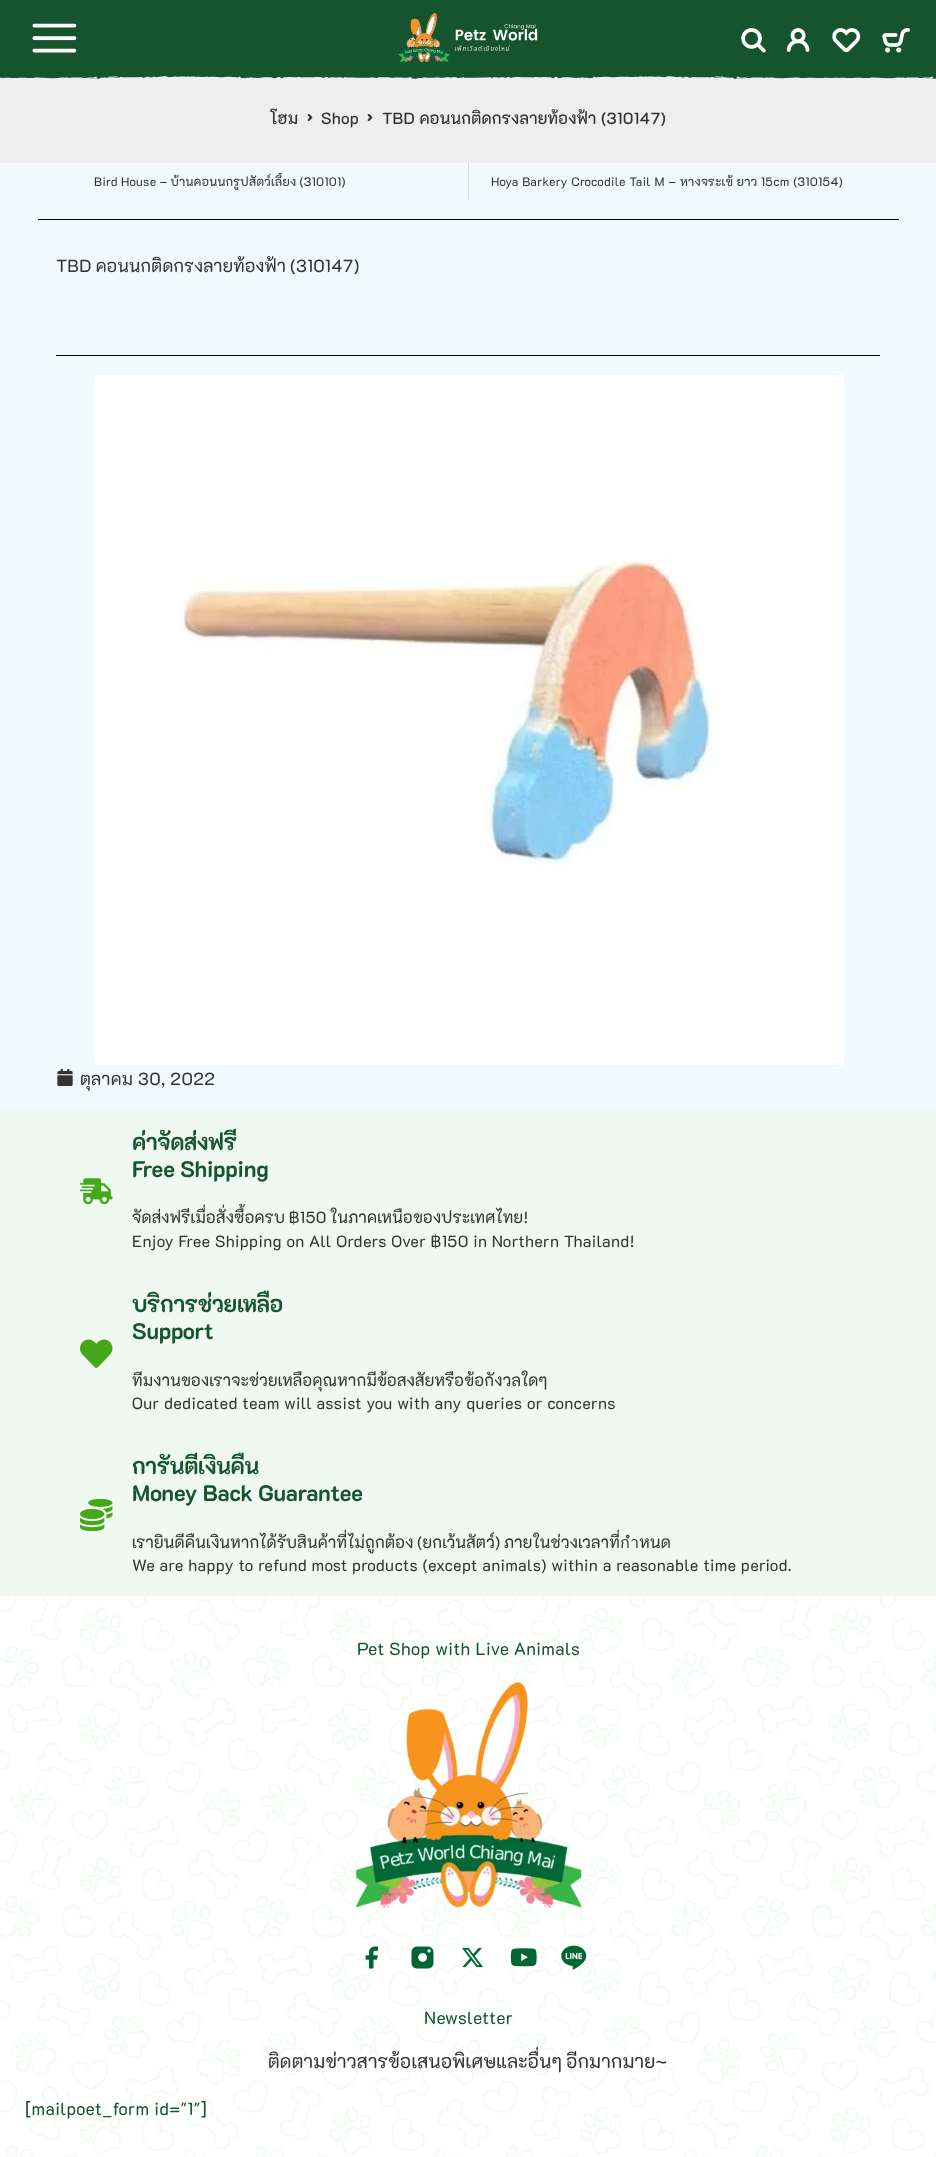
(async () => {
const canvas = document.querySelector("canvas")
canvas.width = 936
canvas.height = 2157
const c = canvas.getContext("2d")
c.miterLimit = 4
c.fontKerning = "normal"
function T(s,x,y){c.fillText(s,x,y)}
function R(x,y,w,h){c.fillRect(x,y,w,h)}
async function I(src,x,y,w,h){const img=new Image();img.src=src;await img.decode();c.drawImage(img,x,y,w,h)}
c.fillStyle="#f0f9fc"
R(0,0,936,2157)
c.fillStyle="#15542e"
R(0,0,936,75)
await I("1.png",32,23,45,30)
await I("2.png",398,13,140,50)
await I("3.png",741,28,25,25)
await I("4.png",786,28,24,24)
await I("5.png",832,28,29,25)
await I("6.png",882,28,28,25)
c.fillStyle="#eee"
R(0,76,936,87)
await I("7.png",0,75,936,4)
c.letterSpacing="0.25px"
c.font="500 16.25px 'K2D'"
c.fillStyle="#333"
T("โฮม",270,124)
await I("8.png",307,114,6,8)
T("Shop",321,124)
await I("8.png",367,114,6,8)
T("TBD คอนนกติดกรงลายท้องฟ้า (310147)",382,124)
c.save()
c.beginPath()
c.rect(94,173,254,17)
c.clip()
c.letterSpacing="0.35px"
c.wordSpacing="-0.5px"
c.font="12.25px 'K2D'"
T("Bird House – บ้านคอนนกรูปสัตว์เลี้ยง (310101)",94,186)
c.restore()
c.fillStyle="#d5d8dc"
R(468,163,1,37)
c.letterSpacing="0.35px"
c.font="12.25px 'K2D'"
c.fillStyle="#333"
T("Hoya Barkery Crocodile Tail M – หางจระเข้ ยาว 15cm (310154)",491,186)
c.fillStyle="#000"
R(38,219,861,1)
c.wordSpacing="-1px"
c.font="17.5px 'K2D'"
c.fillStyle="#333"
T("TBD คอนนกติดกรงลายท้องฟ้า (310147)",56,272)
c.fillStyle="#000"
R(56,355,824,1)
await I("9.png",94,375,750,690)
await I("10.png",57,1069,16,17)
c.wordSpacing="0px"
c.fillStyle="#333"
T("ตุลาคม 30, 2022",80,1085)
c.fillStyle="#eff9f1"
R(0,1110,936,486)
await I("11.png",80,1178,33,27)
c.letterSpacing="-0.25px"
c.font="bold 22.5px 'K2D'"
c.fillStyle="#15542e"
T("ค่าจัดส่งฟรี",132,1150)
T("Free Shipping",132,1177)
c.letterSpacing="0.33px"
c.wordSpacing="-1px"
c.font="16.25px 'K2D'"
c.fillStyle="#333"
T("จัดส่งฟรีเมื่อสั่งซื้อครบ ฿150 ในภาคเหนือของประเทศไทย!",132,1223)
c.wordSpacing="0px"
T("Enjoy Free Shipping on All Orders Over ฿150 in Northern Thailand!",132,1247)
await I("12.png",80,1339,33,29)
c.letterSpacing="-0.25px"
c.font="bold 22.5px 'K2D'"
c.fillStyle="#15542e"
T("บริการช่วยเหลือ",132,1312)
T("Support",132,1339)
c.letterSpacing="0.33px"
c.font="16.25px 'K2D'"
c.fillStyle="#333"
T("ทีมงานของเราจะช่วยเหลือคุณหากมีข้อสงสัยหรือข้อกังวลใดๆ",132,1386)
T("Our dedicated team will assist you with any queries or concerns",132,1409)
await I("13.png",80,1499,33,32)
c.letterSpacing="-0.25px"
c.font="bold 22.5px 'K2D'"
c.fillStyle="#15542e"
T("การันตีเงินคืน",132,1474)
T("Money Back Guarantee",132,1501)
c.letterSpacing="0.33px"
c.wordSpacing="-1px"
c.font="16.25px 'K2D'"
c.fillStyle="#333"
T("เรายินดีคืนเงินหากได้รับสินค้าที่ไม่ถูกต้อง (ยกเว้นสัตว์) ภายในช่วงเวลาที่กำหนด",132,1548)
c.wordSpacing="0px"
T("We are happy to refund most products (except animals) within a reasonable time period.",132,1571)
await I("14.png",0,1596,936,561)
c.letterSpacing="0.35px"
c.font="17.5px 'K2D'"
c.fillStyle="#15542e"
T("Pet Shop with Live Animals",357,1655)
await I("15.png",356,1682,226,226)
await I("16.png",365,1946,13,23)
await I("17.png",411,1946,23,23)
await I("18.png",462,1947,21,21)
await I("19.png",510,1948,27,19)
await I("20.png",561,1945,26,25)
T("Newsletter",424,2024)
c.wordSpacing="-1px"
c.font="18.75px 'K2D'"
c.fillStyle="#333"
T("ติดตามข่าวสารข้อเสนอพิเศษและอื่นๆ อีกมากมาย~",268,2068)
c.wordSpacing="0px"
c.font="17.5px 'K2D'"
c.fillStyle="#15542e"
T("[mailpoet_form id=\"1\"]",25,2115)
})()
